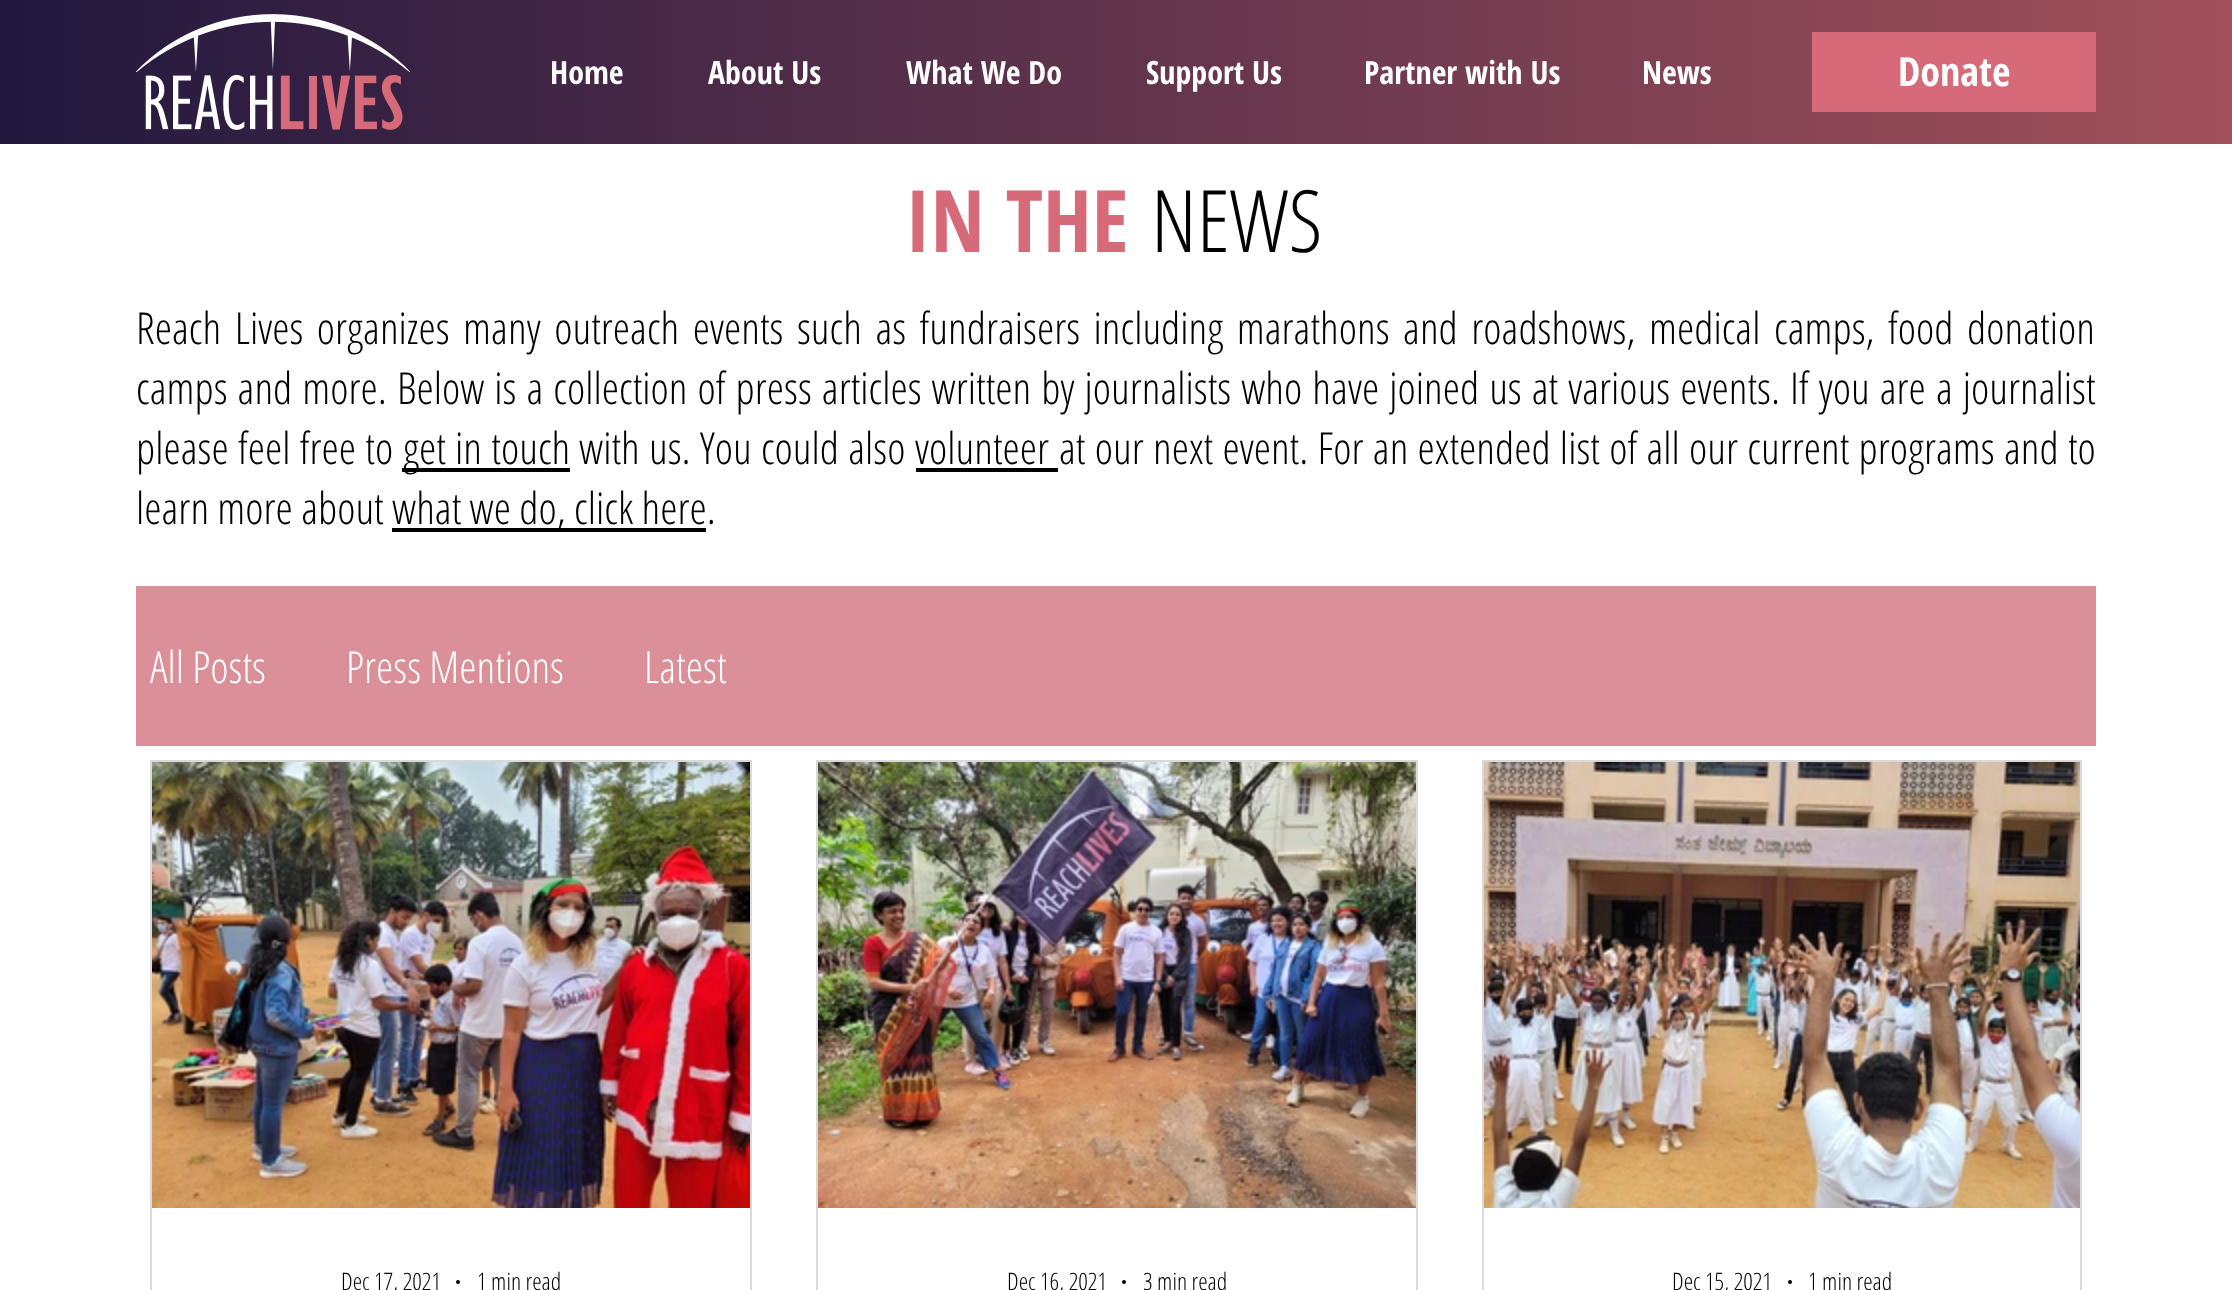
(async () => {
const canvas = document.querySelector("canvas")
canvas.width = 2232
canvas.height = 1290
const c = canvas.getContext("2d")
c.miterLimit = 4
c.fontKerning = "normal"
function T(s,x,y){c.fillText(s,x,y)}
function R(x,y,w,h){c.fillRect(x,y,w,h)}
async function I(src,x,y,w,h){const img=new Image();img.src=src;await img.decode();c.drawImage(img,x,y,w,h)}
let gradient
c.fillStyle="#fff"
R(0,0,2232,1290)
gradient = c.createLinearGradient(0,72,2232,72)
gradient.addColorStop(0,"#21183e")
gradient.addColorStop(1,"#a1505a")
c.fillStyle = gradient
R(0,0,2232,144)
await I("1.png",136,14,274,116)
c.font="bold 32px Open Sans Condensed"
c.fillStyle="#fff"
T("Home",550,84)
T("About Us",708,84)
T("What We Do",906,84)
T("Support Us",1146,84)
T("Partner with Us",1364,84)
T("News",1642,84)
c.fillStyle="#d76a78"
R(1812,32,284,80)
c.font="bold 40px Open Sans Condensed"
c.fillStyle="#fff"
T("Donate",1898,86)
c.font="bold 86px Open Sans Condensed"
c.fillStyle="#d76a78"
T("IN THE",905,252)
c.font="300 86px Open Sans Condensed"
c.fillStyle="#000"
T("NEWS",1151,252)
c.wordSpacing="5.25px"
c.font="300 44px Open Sans Condensed"
T("Reach Lives organizes many outreach events such as fundraisers including marathons and roadshows, medical camps, food donation",136,344)
c.wordSpacing="1.75px"
T("camps and more. Below is a collection of press articles written by journalists who have joined us at various events. If you are a journalist",136,404)
c.wordSpacing="1px"
T("please feel free to",136,464)
R(402,468,168,4)
T("get in touch",403,464)
T("with us. You could also",579,464)
c.wordSpacing="0px"
T("volunteer",915,464)
c.wordSpacing="1px"
T("at our next event. For an extended list of all our current programs and to",1059,464)
R(916,468,142,4)
c.wordSpacing="0px"
T("learn more about",136,524)
R(392,528,314,4)
T("what we do, click here.",392,524)
c.fillStyle="#db8f98"
R(136,586,1960,160)
c.fillStyle="#fff"
T("All Posts",150,683)
T("Press Mentions",346,683)
T("Latest",644,683)
c.strokeStyle="#d9d9d9"
c.lineWidth=2
c.strokeRect(151,761,600,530)
await I("2.png",152,762,598,446)
c.font="300 24px Open Sans Condensed"
c.fillStyle="#000"
T("Dec 17, 2021",341,1290)
c.beginPath()
c.arc(458,1282,2,0,7)
c.fill()
T("1 min read",477,1290)
c.strokeRect(817,761,600,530)
await I("3.png",818,762,598,446)
T("Dec 16, 2021",1007,1290)
c.beginPath()
c.arc(1124,1282,2,0,7)
c.fill()
T("3 min read",1143,1290)
c.strokeRect(1483,761,598,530)
await I("4.png",1484,762,596,446)
T("Dec 15, 2021",1672,1290)
c.beginPath()
c.arc(1790,1282,2,0,7)
c.fill()
T("1 min read",1808,1290)
})()
